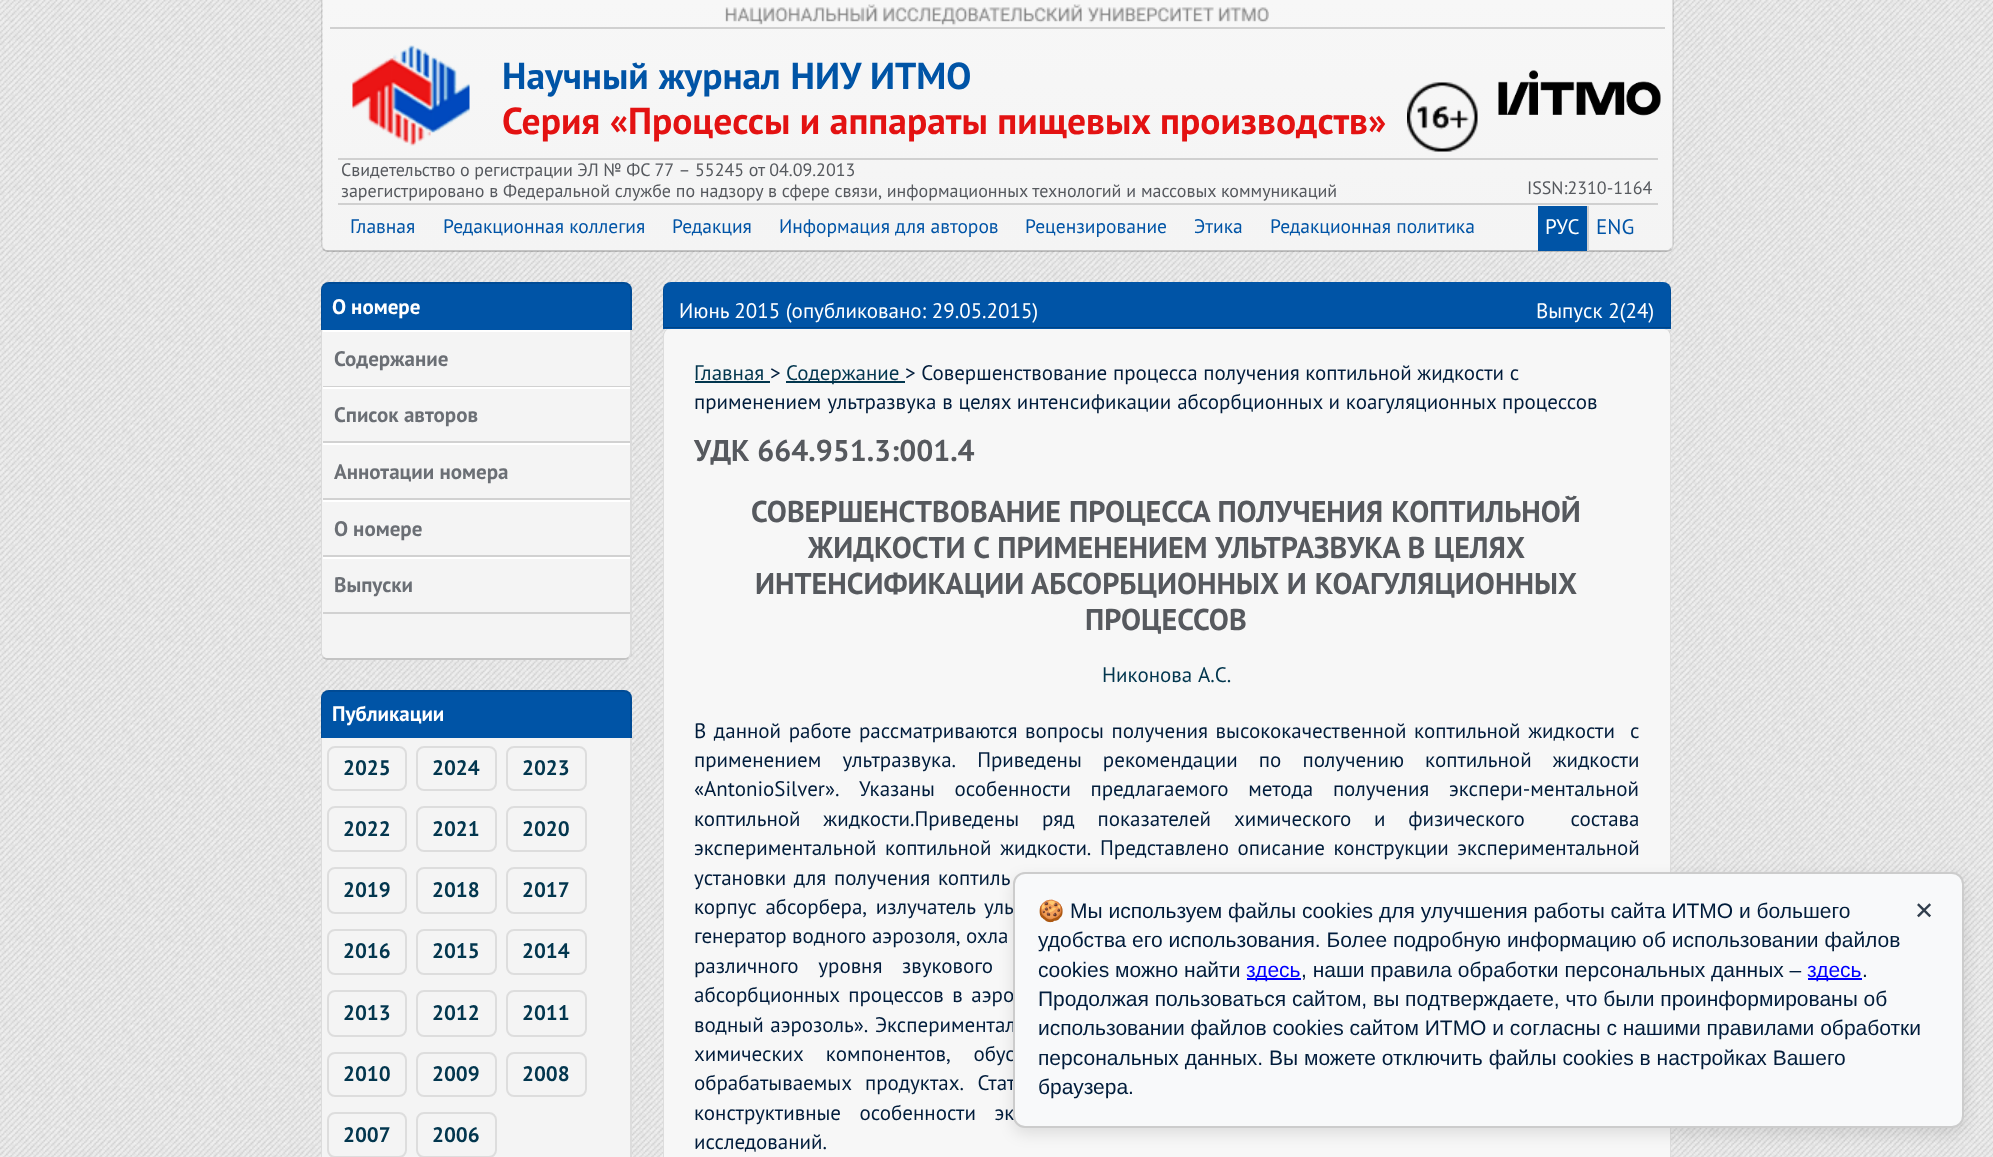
(async () => {
const canvas = document.querySelector("canvas")
canvas.width = 1993
canvas.height = 1157
const c = canvas.getContext("2d")
c.miterLimit = 4
c.fontKerning = "normal"
function T(s,x,y){c.fillText(s,x,y)}
function R(x,y,w,h){c.fillRect(x,y,w,h)}
function Q(x,y,w,h,r){c.beginPath();c.roundRect(x,y,w,h,r);c.fill()}
async function I(src,x,y,w,h){const img=new Image();img.src=src;await img.decode();c.drawImage(img,x,y,w,h)}
let gradient, path
c.fillStyle="#fff"
R(0,0,1993,1157)
await I("1.png",0,0,1993,1157)
gradient = c.createLinearGradient(998,0,998,251)
gradient.addColorStop(0,"#f7f7f7")
gradient.addColorStop(1,"#f4f4f4")
c.fillStyle = gradient
c.beginPath()
c.roundRect(323,0,1350,251,[0,0,6,6])
c.fill()
c.fillStyle="#0000001a"
path = new Path2D("M1674 0h-2v244c0 2 0 4-2 4l2 2c1-2 2-4 2-6z")
c.fill(path)
c.fillStyle="#00000033"
path = new Path2D("M328 252h1338c2 0 4-1 6-2l-2-2c0 2-2 2-4 2h-1338c-1 0-3 0-4-1l-1 1c1 1 3 2 5 2z")
c.fill(path)
c.fillStyle="#0000001a"
path = new Path2D("M321 0h1v244c0 2 1 4 2 5l-1 1c-1-1-2-3-2-6z")
c.fill(path)
await I("2.png",725,4,544,22)
c.fillStyle="#d0d0d0"
R(330,27,1335,2)
await I("3.png",352,45,118,101)
c.wordSpacing="0.5px"
c.font="bold 37.5px PT Sans"
c.fillStyle="#0054a6"
T("Научный журнал НИУ ИТМО",502,89)
c.wordSpacing="0px"
c.fillStyle="#e31212"
T("Серия «Процессы и аппараты пищевых производств»",502,134)
await I("4.png",1407,82,71,70)
await I("5.png",1498,70,163,46)
c.fillStyle="#d0d0d0"
R(338,158,1320,2)
c.wordSpacing="-0.25px"
c.font="18px PT Sans"
c.fillStyle="#56595e"
T("Свидетельство о регистрации ЭЛ № ФС 77 – 55245 от 04.09.2013",341,176)
c.wordSpacing="0px"
T("зарегистрировано в Федеральной службе по надзору в сфере связи, информационных технологий и массовых коммуникаций",341,197)
T("ISSN:2310-1164",1527,194)
c.fillStyle="#d0d0d0"
R(338,203,1320,2)
c.font="19.5px PT Sans"
c.fillStyle="#0054a6"
T("Главная",350,233)
T("Редакционная коллегия",443,233)
T("Редакция",672,233)
T("Информация для авторов",779,233)
T("Рецензирование",1025,233)
T("Этика",1194,233)
T("Редакционная политика",1270,233)
R(1538,206,49,45)
c.fillStyle="#d1d1d1"
R(1587,206,2,45)
c.font="21px PT Sans"
c.fillStyle="#fff"
T("РУС",1545,234)
c.fillStyle="#0054a6"
T("ENG",1596,234)
c.beginPath()
c.roundRect(321,282,311,48,[8,8,0,0])
c.fill()
c.fillStyle="#0000001a"
path = new Path2D("M328 282h296c4 0 8 3 8 8v40h-311v-40c0-5 3-8 7-8zm0 2h296c3 0 6 2 6 6v40h-308v-40c0-4 3-6 6-6z")
c.fill(path,"evenodd")
c.font="bold 21px PT Sans"
c.fillStyle="#fff"
T("О номере",332,314)
c.fillStyle="#f4f4f4"
c.beginPath()
c.roundRect(321,330,311,330,[0,0,8,8])
c.fill()
c.fillStyle="#0000001a"
path = new Path2D("M632 330v325l-3 3l-1-1c1-1 2-3 2-5v-322z")
c.fill(path)
c.fillStyle="#00000033"
path = new Path2D("M328 660h296c2 0 4-1 5-2l-1-1c-1 1-3 1-4 1h-296c-1 0-3 0-4-1l-1 1c1 1 3 2 5 2z")
c.fill(path)
c.fillStyle="#0000001a"
path = new Path2D("M321 330h1v324l2 3l-1 1c-1-1-2-3-2-6z")
c.fill(path)
c.fillStyle="#fff"
R(323,330,307,2)
c.fillStyle="#d1d1d1"
R(323,386,307,1)
c.fillStyle="#6b6f75"
T("Содержание",334,366)
c.fillStyle="#fff"
R(323,387,307,2)
c.fillStyle="#d1d1d1"
R(323,441,307,2)
c.fillStyle="#6b6f75"
T("Список авторов",334,422)
c.fillStyle="#fff"
R(323,443,307,2)
c.fillStyle="#d1d1d1"
R(323,498,307,2)
c.fillStyle="#6b6f75"
T("Аннотации номера",334,479)
c.fillStyle="#fff"
R(323,500,307,2)
c.fillStyle="#d1d1d1"
R(323,555,307,2)
c.fillStyle="#6b6f75"
T("О номере",334,536)
c.fillStyle="#fff"
R(323,557,307,2)
c.fillStyle="#d1d1d1"
R(323,612,307,2)
c.fillStyle="#6b6f75"
T("Выпуски",334,592)
c.fillStyle="#0054a6"
c.beginPath()
c.roundRect(321,690,311,48,[8,8,0,0])
c.fill()
c.fillStyle="#0000001a"
path = new Path2D("M328 690h296c4 0 8 3 8 8v40h-311v-40c0-5 3-8 7-8zm0 2h296c3 0 6 2 6 6v40h-308v-40c0-4 3-6 6-6z")
c.fill(path,"evenodd")
c.fillStyle="#fff"
T("Публикации",332,721)
c.fillStyle="#f4f4f4"
R(322,738,308,419)
c.fillStyle="#dcdcdc"
path = new Path2D("M632 738v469l-3 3l-1-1c1-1 2-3 2-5v-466z")
c.fill(path)
path = new Path2D("M321 738h1v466c0 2 1 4 2 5l-1 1c-1-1-2-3-2-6z")
c.fill(path)
c.beginPath()
c.roundRect(328,747,78,43,7)
c.strokeStyle="#ddd"
c.lineWidth=2
c.stroke()
c.fillStyle="#02364e"
T("2025",343,775)
c.beginPath()
c.roundRect(417,747,79,43,7)
c.stroke()
T("2024",432,775)
c.beginPath()
c.roundRect(507,747,79,43,7)
c.stroke()
T("2023",522,775)
c.beginPath()
c.roundRect(328,807,78,44,7)
c.stroke()
T("2022",343,836)
c.beginPath()
c.roundRect(417,807,79,44,7)
c.stroke()
T("2021",432,836)
c.beginPath()
c.roundRect(507,807,79,44,7)
c.stroke()
T("2020",522,836)
c.beginPath()
c.roundRect(328,868,78,45,7)
c.stroke()
T("2019",343,897)
c.beginPath()
c.roundRect(417,868,79,45,7)
c.stroke()
T("2018",432,897)
c.beginPath()
c.roundRect(507,868,79,45,7)
c.stroke()
T("2017",522,897)
c.beginPath()
c.roundRect(328,930,78,44,7)
c.stroke()
T("2016",343,958)
c.beginPath()
c.roundRect(417,930,79,44,7)
c.stroke()
T("2015",432,958)
c.beginPath()
c.roundRect(507,930,79,44,7)
c.stroke()
T("2014",522,958)
c.beginPath()
c.roundRect(328,991,78,45,7)
c.stroke()
T("2013",343,1020)
c.beginPath()
c.roundRect(417,991,79,45,7)
c.stroke()
T("2012",432,1020)
c.beginPath()
c.roundRect(507,991,79,45,7)
c.stroke()
T("2011",522,1020)
c.beginPath()
c.roundRect(328,1053,78,43,7)
c.stroke()
T("2010",343,1081)
c.beginPath()
c.roundRect(417,1053,79,43,7)
c.stroke()
T("2009",432,1081)
c.beginPath()
c.roundRect(507,1053,79,43,7)
c.stroke()
T("2008",522,1081)
c.beginPath()
c.roundRect(328,1113,78,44,7)
c.stroke()
T("2007",343,1142)
c.beginPath()
c.roundRect(417,1113,79,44,7)
c.stroke()
T("2006",432,1142)
c.fillStyle="#0054a6"
c.beginPath()
c.roundRect(663,282,1008,47,[8,8,0,0])
c.fill()
c.fillStyle="#0000001a"
path = new Path2D("M1671 290c0-5-3-8-7-8c3 0 6 3 6 8v37v1h1z")
c.fill(path)
c.fillStyle="#004385"
R(664,327,1006,1)
c.fillStyle="#0000001a"
path = new Path2D("M670 282c-4 0-7 3-7 8v38l1-1v-37c0-5 3-8 6-8z")
c.fill(path)
c.font="21px PT Sans"
c.fillStyle="#fff"
T("Июнь 2015 (опубликовано: 29.05.2015)",679,318)
T("Выпуск 2(24)",1536,318)
c.fillStyle="#f7f7f7"
Q(663,329,1008,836,8)
c.fillStyle="#0000001a"
path = new Path2D("M1668 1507c1-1 2-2 2-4v-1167c0-3-2-6-4-8c3 2 5 5 5 8v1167c0 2-1 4-2 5z")
c.fill(path)
path = new Path2D("M668 328c-2 2-4 5-4 8v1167c0 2 1 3 2 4l-1 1c-1-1-2-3-2-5v-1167c0-3 2-6 5-8z")
c.fill(path)
c.fillStyle="#02364e"
T("Главная",694,380)
R(695,381,75,2)
c.fillStyle="#001c3b"
T(">",770,380)
c.fillStyle="#02364e"
R(786,381,119,2)
T("Содержание",786,380)
c.fillStyle="#001c3b"
T("> Совершенствование процесса получения коптильной жидкости с",905,380)
c.wordSpacing="0.25px"
T("применением ультразвука в целях интенсификации абсорбционных и коагуляционных процессов",694,409)
c.wordSpacing="0.5px"
c.font="bold 30px PT Sans"
c.fillStyle="#56595e"
T("УДК 664.951.3:001.4",694,461)
T("СОВЕРШЕНСТВОВАНИЕ ПРОЦЕССА ПОЛУЧЕНИЯ КОПТИЛЬНОЙ",751,522)
c.wordSpacing="0.75px"
T("ЖИДКОСТИ С ПРИМЕНЕНИЕМ УЛЬТРАЗВУКА В ЦЕЛЯХ",808,558)
c.wordSpacing="0.5px"
T("ИНТЕНСИФИКАЦИИ АБСОРБЦИОННЫХ И КОАГУЛЯЦИОННЫХ",755,594)
c.wordSpacing="0px"
T("ПРОЦЕССОВ",1085,630)
c.wordSpacing="1px"
c.font="21px PT Sans"
c.fillStyle="#02364e"
T("Никонова А.С.",1102,682)
c.wordSpacing="2px"
c.fillStyle="#001c3b"
T("В данной работе рассматриваются вопросы получения высококачественной коптильной жидкости  с",694,738)
c.wordSpacing="15.5px"
T("применением ультразвука. Приведены рекомендации по получению коптильной жидкости",694,767)
c.wordSpacing="14px"
T("«AntonioSilver». Указаны особенности предлагаемого метода получения экспери-ментальной",694,796)
c.wordSpacing="17.25px"
T("коптильной жидкости.Приведены ряд показателей химического и физического  состава",694,826)
c.wordSpacing="3px"
T("экспериментальной коптильной жидкости. Представлено описание конструкции экспериментальной",694,855)
c.wordSpacing="2px"
T("установки для получения коптиль",694,885)
c.wordSpacing="3px"
T("корпус абсорбера, излучатель уль",694,914)
c.wordSpacing="0px"
T("генератор водного аэрозоля, охла",694,943)
c.wordSpacing="14px"
T("различного уровня звукового",694,973)
c.wordSpacing="3px"
T("абсорбционных процессов в аэро",694,1002)
c.wordSpacing="1px"
T("водный аэрозоль». Экспериментал",694,1032)
c.wordSpacing="17px"
T("химических компонентов, обус",694,1061)
c.wordSpacing="8px"
T("обрабатываемых продуктах. Стат",694,1090)
c.wordSpacing="13px"
T("конструктивные особенности эк",694,1120)
c.wordSpacing="0px"
T("исследований.",694,1149)
c.fillStyle="#0000001a"
c.filter="blur(7.5px)"
c.beginPath()
c.roundRect(1013,878,951,256,12)
c.fill()
c.filter="none"
c.fillStyle="#f8f9fa"
c.beginPath()
c.roundRect(1014,873,949,254,11)
c.fill()
c.strokeStyle="#ccc"
c.stroke()
c.font="21px Noto Color Emoji"
c.fillStyle="#001c3b"
T("🍪",1038,918)
c.font="21px Liberation Sans"
T("Мы используем файлы cookies для улучшения работы сайта ИТМО и большего",1070,918)
c.font="24px DejaVu Sans"
c.fillStyle="#313e4d"
T("✕",1914,919)
c.font="21px Liberation Sans"
c.fillStyle="#001c3b"
T("удобства его использования. Более подробную информацию об использовании файлов",1038,947)
T("cookies можно найти",1038,977)
c.fillStyle="#00f"
R(1247,978,54,2)
T("здесь",1246,977)
c.fillStyle="#001c3b"
T(", наши правила обработки персональных данных –",1301,977)
c.fillStyle="#00f"
R(1808,978,54,2)
T("здесь",1807,977)
c.fillStyle="#001c3b"
T(".",1862,977)
T("Продолжая пользоваться сайтом, вы подтверждаете, что были проинформированы об",1038,1006)
T("использовании файлов cookies сайтом ИТМО и согласны с нашими правилами обработки",1038,1035)
T("персональных данных. Вы можете отключить файлы cookies в настройках Вашего",1038,1065)
T("браузера.",1038,1094)
})()
